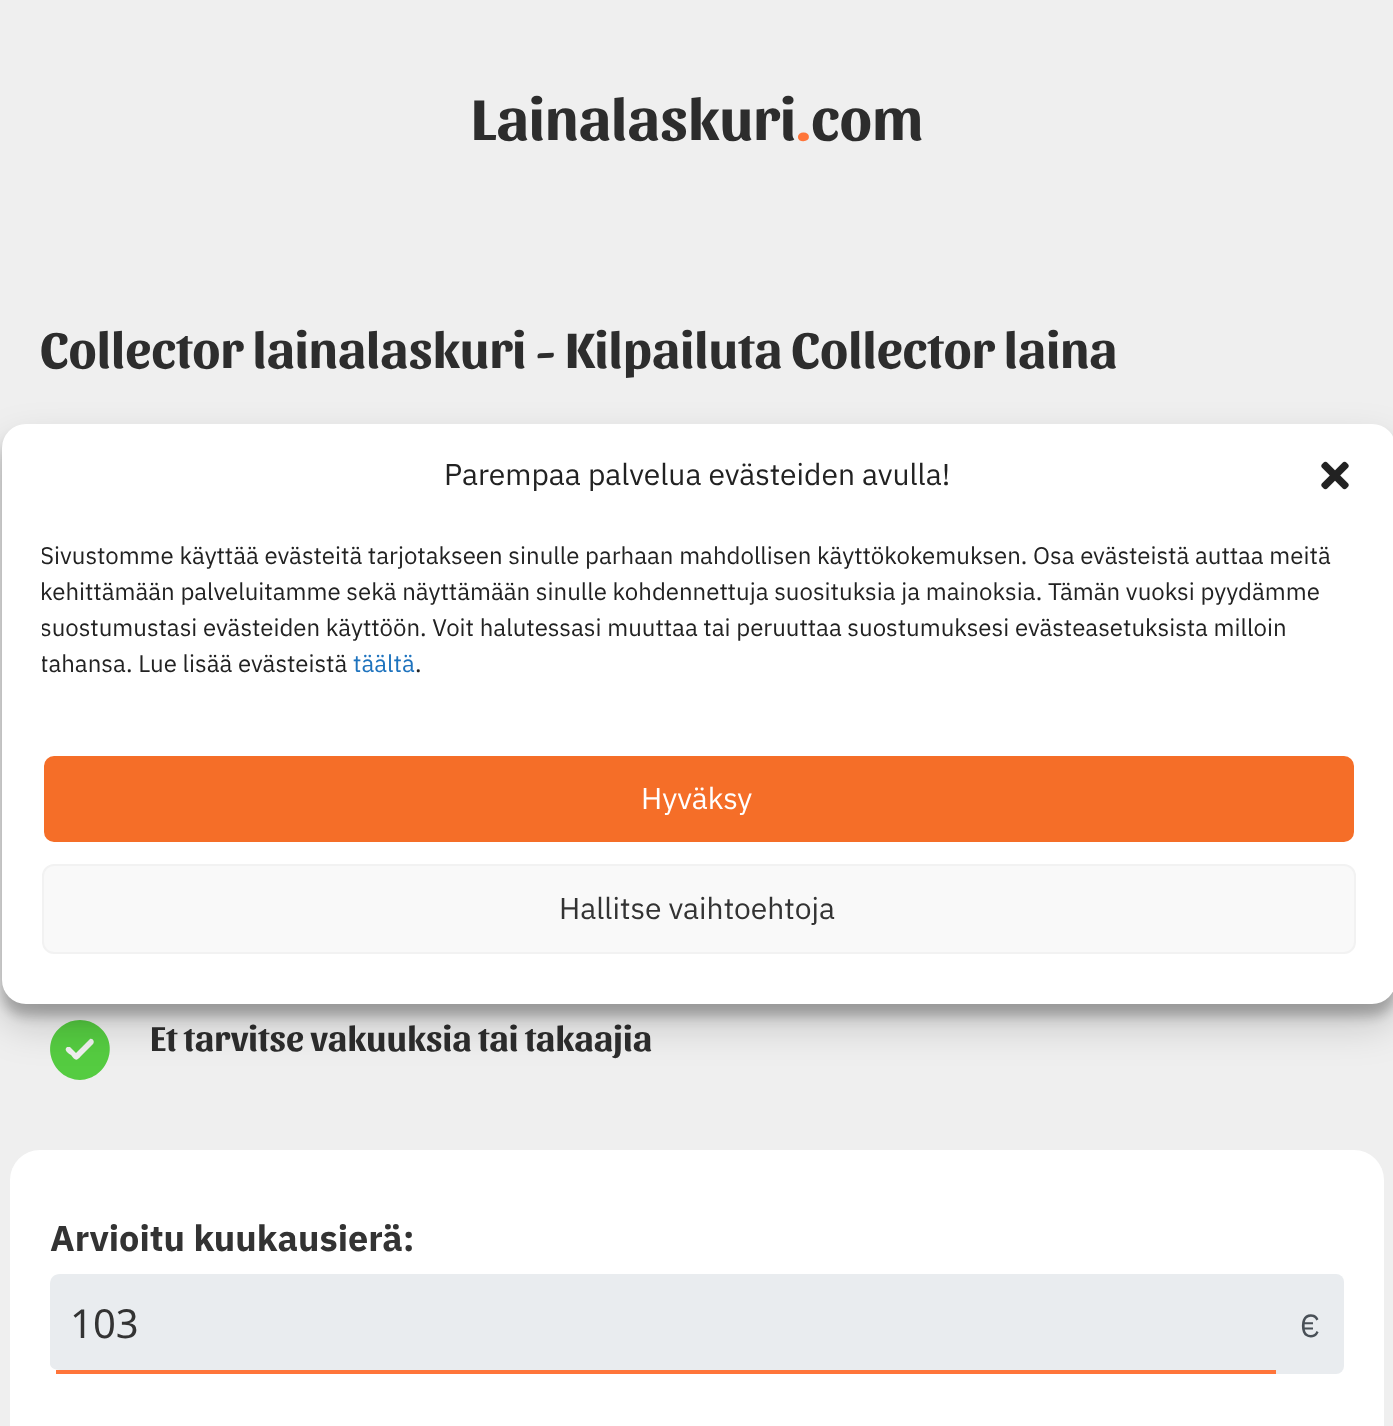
(async () => {
const canvas = document.querySelector("canvas")
canvas.width = 1393
canvas.height = 1426
const c = canvas.getContext("2d")
c.miterLimit = 4
c.fontKerning = "normal"
function T(s,x,y){c.fillText(s,x,y)}
function R(x,y,w,h){c.fillRect(x,y,w,h)}
function Q(x,y,w,h,r){c.beginPath();c.roundRect(x,y,w,h,r);c.fill()}
async function I(src,x,y,w,h){const img=new Image();img.src=src;await img.decode();c.drawImage(img,x,y,w,h)}
let path
c.fillStyle="#efefef"
R(0,0,1393,1426)
c.font="bold 60px Sansita"
c.fillStyle="#2d2d2d"
T("Lainalaskuri",471,140)
c.fillStyle="#ff753a"
T(".",796,140)
c.fillStyle="#2d2d2d"
T("com",811,140)
c.font="bold 52px Sansita"
T("Collector lainalaskuri - Kilpailuta Collector laina",40,368)
c.fillStyle="#55cc41"
path = new Path2D("M80 1080c28-1 41-37 18-54c-5-4-11-6-18-6c-7 0-13 2-18 6c-23 17-10 53 18 54zm13-36l-15 15l15-15l-12 12c-5 6-6 4-10-1c-2-1-8-5-4-8h3l6 6l14-14c3-1 5 3 3 5z")
c.fill(path)
c.font="bold 36px Sansita"
c.fillStyle="#2d2d2d"
T("Et tarvitse vakuuksia tai takaajia",150,1051)
c.fillStyle="#fff"
Q(10,1150,1374,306,30)
c.font="bold 36px IBM Plex Sans"
c.fillStyle="#333"
T("Arvioitu kuukausierä:",50,1251)
c.fillStyle="#e9ecef"
path = new Path2D("M60 1274h1216v96h-1216c-6 0-10-3-10-6v-80c0-6 4-10 10-10z")
c.fill(path)
c.fillStyle="#ff753a"
R(56,1370,1220,4)
c.font="40px Noto Sans"
c.fillStyle="#333"
T("103",70,1338)
c.fillStyle="#e9ecef"
c.beginPath()
c.roundRect(1276,1274,68,100,[0,8,8,0])
c.fill()
c.font="32px IBM Plex Sans"
c.fillStyle="#495057"
T("€",1300,1337)
c.fillStyle="#0000003b"
c.filter="blur(6px)"
c.beginPath()
c.roundRect(2,436,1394,580,24)
c.fill()
c.filter="none"
c.fillStyle="#00000030"
c.filter="blur(20px)"
c.beginPath()
c.roundRect(2,444,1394,580,24)
c.fill()
c.filter="none"
c.fillStyle="#fff"
Q(2,424,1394,580,24)
c.font="30px IBM Plex Sans"
c.fillStyle="#222"
T("Parempaa palvelua evästeiden avulla!",444,485)
await I("1.png",1321,461,28,29)
c.save()
c.beginPath()
c.rect(42,538,1314,176)
c.clip()
c.font="24px IBM Plex Sans"
T("Sivustomme käyttää evästeitä tarjotakseen sinulle parhaan mahdollisen käyttökokemuksen. Osa evästeistä auttaa meitä",40,564)
c.restore()
c.font="24px IBM Plex Sans"
T("kehittämään palveluitamme sekä näyttämään sinulle kohdennettuja suosituksia ja mainoksia. Tämän vuoksi pyydämme",40,600)
c.save()
c.beginPath()
c.rect(42,538,1314,176)
c.clip()
T("suostumustasi evästeiden käyttöön. Voit halutessasi muuttaa tai peruuttaa suostumuksesi evästeasetuksista milloin",40,636)
T("tahansa. Lue lisää evästeistä",40,672)
c.restore()
c.fillStyle="#1e73be"
T("täältä",353,672)
c.fillStyle="#222"
T(".",415,672)
c.fillStyle="#f56e28"
c.beginPath()
c.roundRect(43,755,1312,88,11)
c.fill()
c.strokeStyle="#fff"
c.lineWidth=2
c.stroke()
c.font="30px IBM Plex Sans"
c.fillStyle="#fff"
T("Hyväksy",641,809)
c.fillStyle="#f9f9f9"
c.beginPath()
c.roundRect(43,865,1312,88,11)
c.fill()
c.strokeStyle="#f2f2f2"
c.stroke()
c.fillStyle="#333"
T("Hallitse vaihtoehtoja",559,919)
})()
